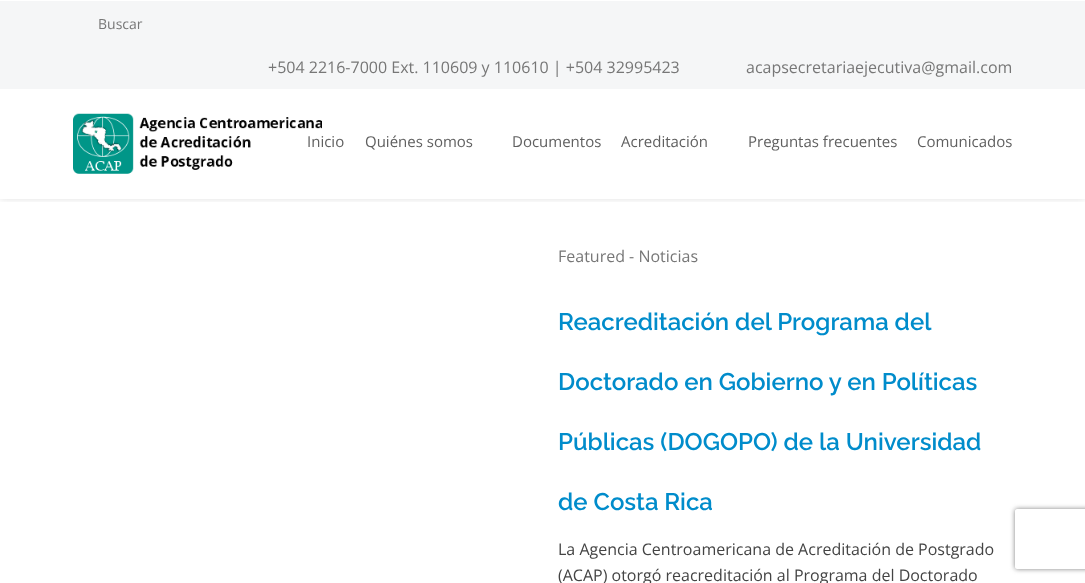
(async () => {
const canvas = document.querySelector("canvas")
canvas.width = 1085
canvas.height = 583
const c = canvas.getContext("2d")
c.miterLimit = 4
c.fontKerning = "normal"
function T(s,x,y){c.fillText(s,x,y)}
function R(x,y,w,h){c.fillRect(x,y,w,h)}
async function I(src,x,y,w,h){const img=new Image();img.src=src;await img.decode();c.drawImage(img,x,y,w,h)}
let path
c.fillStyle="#fff"
R(0,0,1085,583)
c.save()
c.beginPath()
c.rect(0,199,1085,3)
c.clip()
c.fillStyle="#0000001f"
c.filter="blur(3.5px)"
c.beginPath()
c.rect(0,0,1085,199)
c.fill()
c.filter="none"
c.restore()
c.fillStyle="#f5f6f7"
R(0,1,1085,88)
c.font="14px Open Sans"
c.fillStyle="#777"
T("Buscar",98,29)
c.font="16px Open Sans"
T("+504 2216-7000 Ext. 110609 y 110610 | +504 32995423",268,73)
T("acapsecretariaejecutiva@gmail.com",746,73)
await I("1.png",73,113,249,61)
c.font="15px Open Sans"
c.fillStyle="#606060"
T("Inicio",307,147)
T("Quiénes somos",365,147)
T("Documentos",512,147)
T("Acreditación",621,147)
T("Preguntas frecuentes",748,147)
T("Comunicados",917,147)
c.font="16px Open Sans"
c.fillStyle="#777"
T("Featured - Noticias",558,262)
c.font="600 24px Raleway"
c.fillStyle="#008ccb"
T("Reacreditación del Programa del",558,330)
T("Doctorado en Gobierno y en Políticas",558,390)
T("Públicas (DOGOPO) de la Universidad",558,450)
T("de Costa Rica",558,510)
c.font="16px Open Sans"
c.fillStyle="#444"
T("La Agencia Centroamericana de Acreditación de Postgrado",558,555)
T("(ACAP) otorgó reacreditación al Programa del Doctorado",558,581)
c.save()
path = new Path2D("M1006 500h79v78h-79zm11 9h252c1 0 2 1 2 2v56c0 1-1 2-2 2h-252c-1 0-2-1-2-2v-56c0-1 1-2 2-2z")
c.clip(path,"evenodd")
c.fillStyle="#808080"
c.filter="blur(2.5px)"
c.beginPath()
c.roundRect(1015,509,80,60,2)
c.fill()
c.filter="none"
c.restore()
})()
